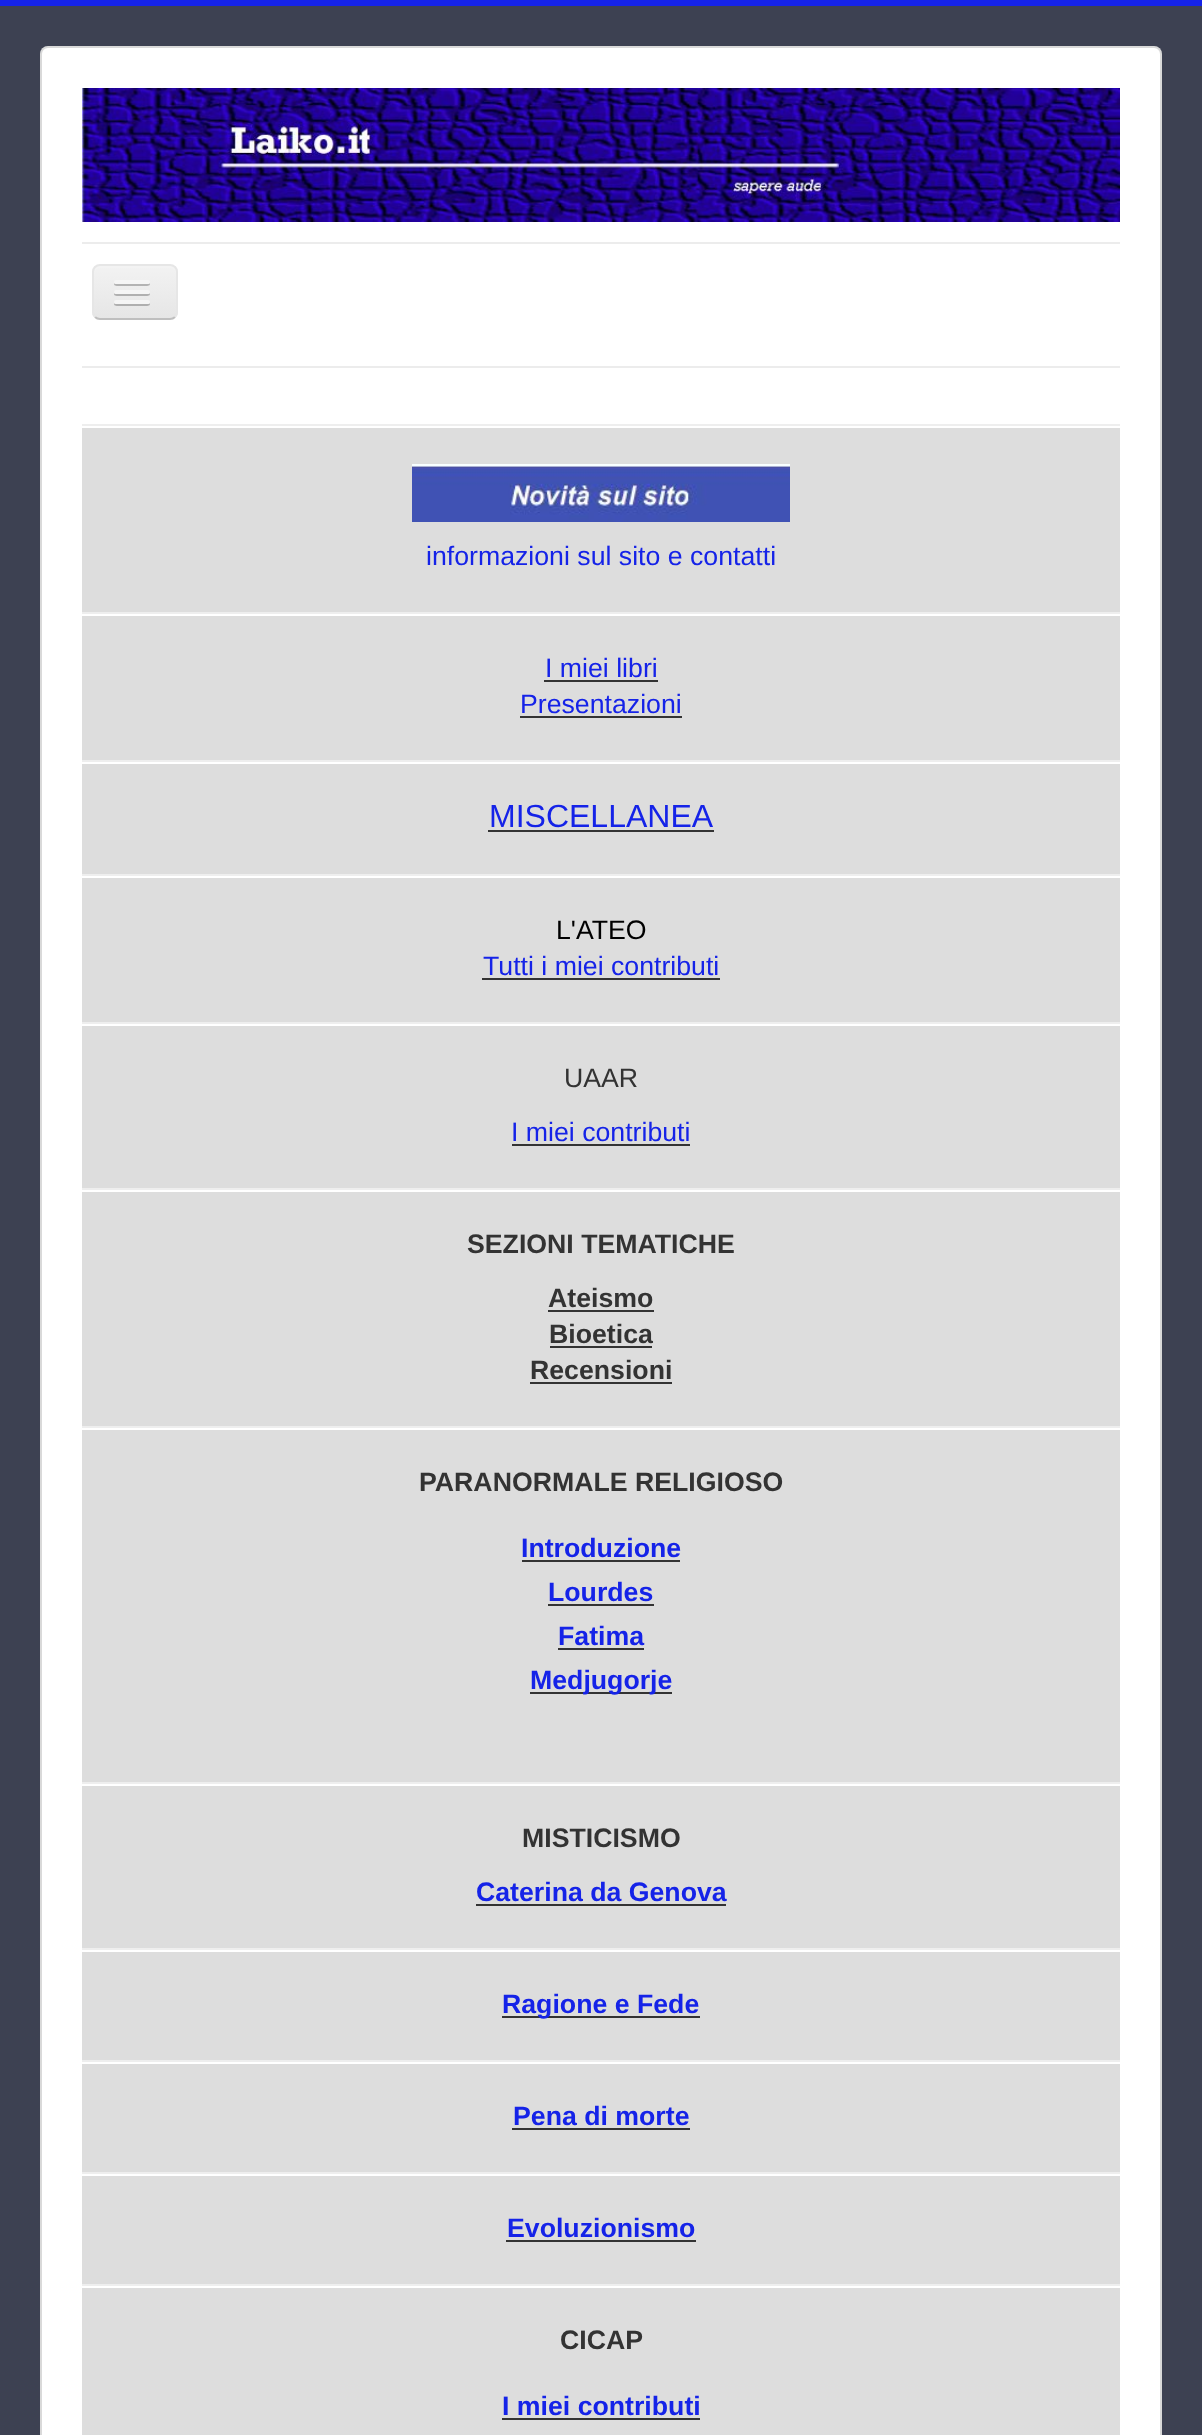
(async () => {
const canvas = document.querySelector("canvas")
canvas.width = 1202
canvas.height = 2435
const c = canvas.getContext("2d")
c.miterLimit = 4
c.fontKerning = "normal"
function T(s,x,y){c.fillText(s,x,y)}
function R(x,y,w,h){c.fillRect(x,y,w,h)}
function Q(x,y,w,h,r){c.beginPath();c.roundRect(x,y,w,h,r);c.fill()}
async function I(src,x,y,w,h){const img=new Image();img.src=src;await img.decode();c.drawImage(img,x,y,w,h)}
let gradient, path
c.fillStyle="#3d4152"
R(0,0,1202,2435)
c.fillStyle="#1523e8"
R(0,0,1202,6)
c.fillStyle="#fff"
Q(40,46,1122,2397,8)
c.beginPath()
c.roundRect(41,47,1120,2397,7)
c.strokeStyle="#00000026"
c.lineWidth=2
c.stroke()
await I("1.png",82,88,1038,134)
c.fillStyle="#ececec"
R(82,242,1038,2)
R(82,366,1038,2)
c.save()
c.beginPath()
c.roundRect(92,264,86,56,8)
c.clip()
gradient = c.createLinearGradient(135,266,135,318)
gradient.addColorStop(0,"#f2f2f2")
gradient.addColorStop(1,"#e6e6e6")
c.fillStyle = gradient
R(92,266,86,52)
c.restore()
c.fillStyle="#f3f3f3"
path = new Path2D("M100 268h70c3 0 6 3 6 6c0-11-9-8-18-8h-46c-9 0-18-3-18 8c0-3 3-6 6-6z")
c.fill(path)
path = new Path2D("M175 317c-1.5 1.5-3 2-5 2h-70c-2 0-3.5-.5-5-2")
c.strokeStyle="#bfbfbf"
c.stroke(path)
path = new Path2D("M95 317c-1.5-1.5-2-3-2-5v-40c0-2 .5-3.5 2-5c1.5-1.5 3-2 5-2h70c2 0 3.5 .5 5 2c1.5 1.5 2 3 2 5v40c0 2-.5 3.5-2 5")
c.strokeStyle="#e6e6e6"
c.stroke(path)
c.fillStyle="#b3b3b3"
path = new Path2D("M114.5 283c-2.5 4 6.5 3 7 3h21c.5 0 9.5 1 7-3c0 .5-1 1-1.5 1h-32c-.5 0-1.5-.5-1.5-1z")
c.fill(path)
c.fillStyle="#f5f5f5"
Q(114,280,36,4,2)
c.fillStyle="#b0b0b0"
path = new Path2D("M114.5 293c-2.5 4 6.5 3 7 3h21c.5 0 9.5 1 7-3c0 .5-1 1-1.5 1h-32c-.5 0-1.5-.5-1.5-1z")
c.fill(path)
c.fillStyle="#f5f5f5"
Q(114,290,36,4,2)
c.fillStyle="#afafaf"
path = new Path2D("M114.5 303c-2.5 4 6.5 3 7 3h21c.5 0 9.5 1 7-3c0 .5-1 1-1.5 1h-32c-.5 0-1.5-.5-1.5-1z")
c.fill(path)
c.fillStyle="#f5f5f5"
Q(114,300,36,4,2)
c.fillStyle="#ddd"
R(82,428,1038,2007)
c.fillStyle="#eee"
R(82,424,1038,2)
await I("2.png",412,464,378,58)
c.font="26.7px Liberation Sans"
c.fillStyle="#1523e8"
T("informazioni sul sito e contatti",426,565)
c.fillStyle="#eee"
R(82,612,1038,2)
c.fillStyle="#fff"
R(82,614,1038,2)
c.fillStyle="#1523e8"
T("I miei libri",545,677)
c.fillStyle="#333"
R(544,680,114,2)
c.fillStyle="#1523e8"
T("Presentazioni",520,713)
c.fillStyle="#333"
R(520,716,162,2)
c.fillStyle="#eee"
R(82,760,1038,2)
c.fillStyle="#fff"
R(82,762,1038,2)
c.font="32px Liberation Sans"
c.fillStyle="#1523e8"
T("MISCELLANEA",489,827)
c.fillStyle="#333"
R(488,830,226,2)
c.fillStyle="#eee"
R(82,874,1038,2)
c.fillStyle="#fff"
R(82,876,1038,2)
c.font="26.7px Liberation Sans"
c.fillStyle="#000"
T("L'ATEO",556,939)
c.fillStyle="#1523e8"
T("Tutti i miei contributi",483,975)
c.fillStyle="#333"
R(482,978,238,2)
c.fillStyle="#eee"
R(82,1022,1038,2)
c.fillStyle="#fff"
R(82,1024,1038,2)
c.fillStyle="#333"
T("UAAR",564,1087)
c.fillStyle="#1523e8"
T("I miei contributi",511,1141)
c.fillStyle="#333"
R(512,1144,178,2)
c.fillStyle="#eee"
R(82,1188,1038,2)
c.fillStyle="#fff"
R(82,1190,1038,2)
c.font="bold 26.7px Liberation Sans"
c.fillStyle="#333"
T("SEZIONI TEMATICHE",467,1253)
T("Ateismo",548,1307)
R(548,1310,106,2)
T("Bioetica",549,1343)
R(550,1346,102,2)
T("Recensioni",530,1379)
R(530,1382,142,2)
c.fillStyle="#eee"
R(82,1426,1038,2)
c.fillStyle="#fff"
R(82,1428,1038,2)
c.fillStyle="#333"
T("PARANORMALE RELIGIOSO",419,1491)
c.fillStyle="#1523e8"
T("Introduzione",521,1557)
c.fillStyle="#333"
R(522,1560,158,2)
c.fillStyle="#1523e8"
T("Lourdes",548,1601)
c.fillStyle="#333"
R(548,1604,106,2)
c.fillStyle="#1523e8"
T("Fatima",558,1645)
c.fillStyle="#333"
R(558,1648,86,2)
R(530,1692,142,2)
c.fillStyle="#1523e8"
T("Medjugorje",530,1689)
c.fillStyle="#eee"
R(82,1782,1038,2)
c.fillStyle="#fff"
R(82,1784,1038,2)
c.fillStyle="#333"
T("MISTICISMO",522,1847)
c.fillStyle="#1523e8"
T("Caterina da Genova",476,1901)
c.fillStyle="#333"
R(476,1904,250,2)
c.fillStyle="#eee"
R(82,1948,1038,2)
c.fillStyle="#fff"
R(82,1950,1038,2)
c.fillStyle="#333"
R(502,2016,198,2)
c.fillStyle="#1523e8"
T("Ragione e Fede",502,2013)
c.fillStyle="#eee"
R(82,2060,1038,2)
c.fillStyle="#fff"
R(82,2062,1038,2)
c.fillStyle="#1523e8"
T("Pena di morte",513,2125)
c.fillStyle="#333"
R(512,2128,178,2)
c.fillStyle="#eee"
R(82,2172,1038,2)
c.fillStyle="#fff"
R(82,2174,1038,2)
c.fillStyle="#1523e8"
T("Evoluzionismo",507,2237)
c.fillStyle="#333"
R(506,2240,190,2)
c.fillStyle="#eee"
R(82,2284,1038,2)
c.fillStyle="#fff"
R(82,2286,1038,2)
c.fillStyle="#333"
T("CICAP",560,2349)
c.fillStyle="#1523e8"
T("I miei contributi",502,2415)
c.fillStyle="#333"
R(502,2418,198,2)
})()
